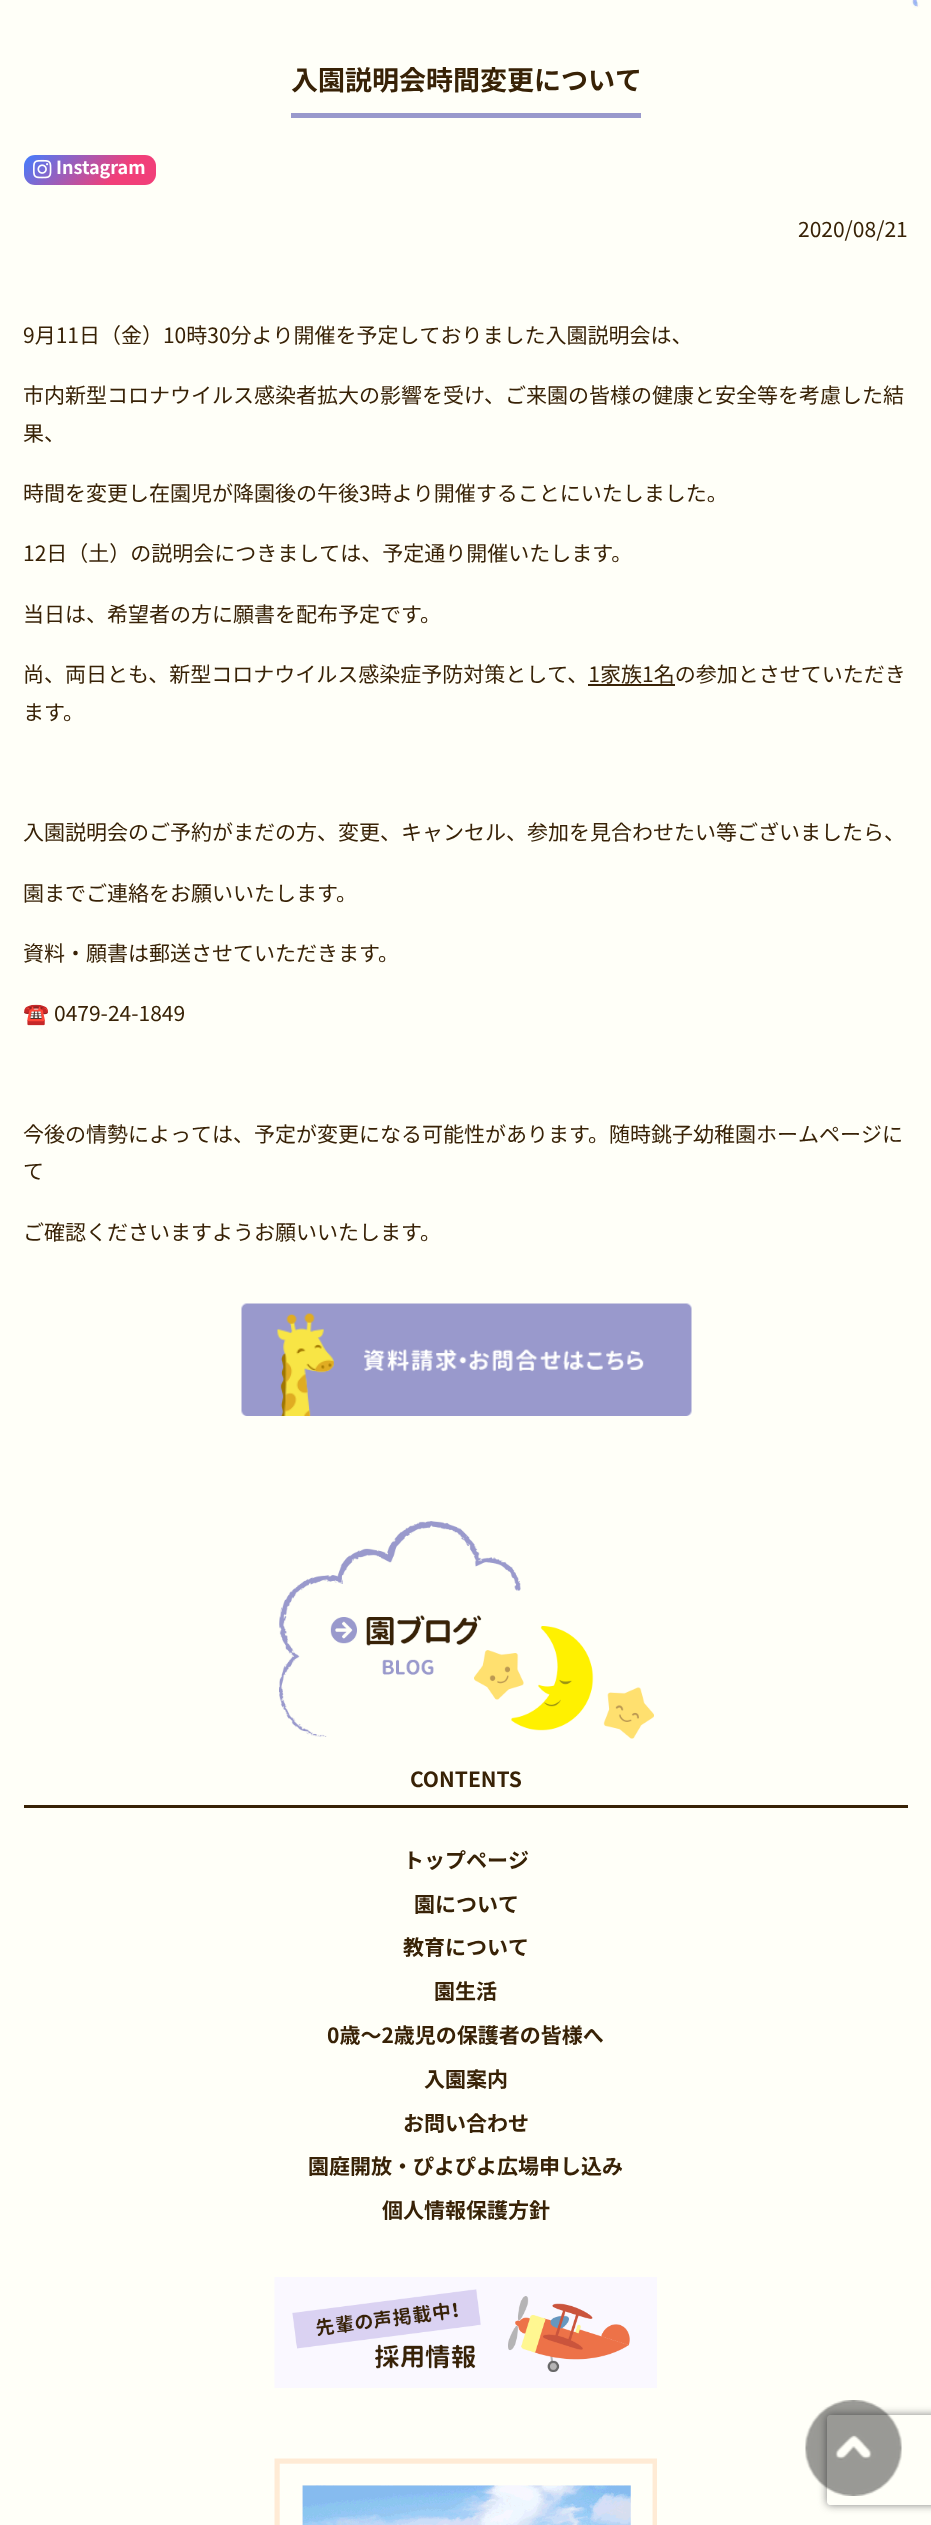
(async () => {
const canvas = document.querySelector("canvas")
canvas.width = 931
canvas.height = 2525
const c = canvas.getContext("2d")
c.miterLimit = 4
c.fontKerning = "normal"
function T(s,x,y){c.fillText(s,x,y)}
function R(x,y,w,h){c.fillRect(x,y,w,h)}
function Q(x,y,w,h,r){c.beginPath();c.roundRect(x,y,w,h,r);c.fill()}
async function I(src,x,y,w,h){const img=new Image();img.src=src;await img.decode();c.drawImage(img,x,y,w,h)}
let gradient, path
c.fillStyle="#fffff8"
R(0,0,931,2525)
await I("1.png",911,0,9,8)
c.font="bold 27px Noto Sans JP"
c.fillStyle="#382206"
T("入園説明会時間変更について",291,90)
c.fillStyle="#99c"
R(291,113,350,5)
gradient = c.createLinearGradient(50,129,131,210)
gradient.addColorStop(0,"#427eff")
gradient.addColorStop(.7,"#f13f79")
c.fillStyle = gradient
Q(24,155,132,30,11)
await I("2.png",33,159,19,20)
c.font="bold 18px Noto Sans JP"
c.fillStyle="#fff"
T("Instagram",56,174)
c.font="21px Noto Sans JP"
c.fillStyle="#382206"
T("2020/08/21",798,237)
T("9月11日（金）10時30分より開催を予定しておりました入園説明会は、",23,343)
T("市内新型コロナウイルス感染者拡大の影響を受け、ご来園の皆様の健康と安全等を考慮した結",23,403)
T("果、",23,441)
T("時間を変更し在園児が降園後の午後3時より開催することにいたしました。",23,501)
T("12日（土）の説明会につきましては、予定通り開催いたします。",23,561)
T("当日は、希望者の方に願書を配布予定です。",23,622)
T("尚、両日とも、新型コロナウイルス感染症予防対策として、1家族1名の参加とさせていただき",23,682)
R(588,684,87,2)
T("ます。",23,720)
T("入園説明会のご予約がまだの方、変更、キャンセル、参加を見合わせたい等ございましたら、",23,840)
T("園までご連絡をお願いいたします。",23,901)
T("資料・願書は郵送させていただきます。",23,961)
c.font="21px Noto Color Emoji"
T("☎️",23,1021)
c.font="21px Noto Sans JP"
T("0479-24-1849",54,1021)
T("今後の情勢によっては、予定が変更になる可能性があります。随時銚子幼稚園ホームページに",23,1142)
T("て",23,1179)
T("ご確認くださいますようお願いいたします。",23,1240)
await I("3.png",241,1303,451,113)
await I("4.png",279,1521,375,218)
R(24,1805,884,3)
c.font="bold 21px Noto Sans JP"
T("CONTENTS",410,1787)
T("トップページ",403,1868)
T("園について",414,1912)
T("教育について",403,1955)
T("園生活",434,1999)
T("0歳～2歳児の保護者の皆様へ",327,2043)
T("入園案内",424,2087)
T("お問い合わせ",403,2131)
T("園庭開放・ぴよぴよ広場申し込み",308,2174)
T("個人情報保護方針",382,2218)
await I("5.png",274,2277,383,111)
await I("6.png",274,2458,383,67)
c.save()
path = new Path2D("M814 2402h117v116h-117zm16 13h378c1.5 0 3 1.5 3 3v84c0 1.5-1.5 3-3 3h-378c-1.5 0-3-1.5-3-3v-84c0-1.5 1.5-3 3-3z")
c.clip(path,"evenodd")
c.fillStyle="#808080"
c.filter="blur(4px)"
c.beginPath()
c.roundRect(827,2415,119,90,3)
c.fill()
c.filter="none"
c.restore()
await I("7.png",805,2400,97,96)
})()
